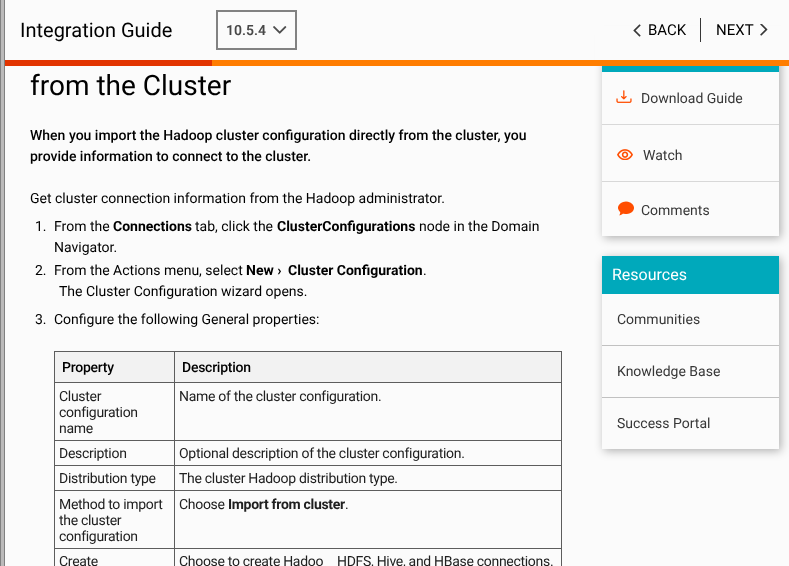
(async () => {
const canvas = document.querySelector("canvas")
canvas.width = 789
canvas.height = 566
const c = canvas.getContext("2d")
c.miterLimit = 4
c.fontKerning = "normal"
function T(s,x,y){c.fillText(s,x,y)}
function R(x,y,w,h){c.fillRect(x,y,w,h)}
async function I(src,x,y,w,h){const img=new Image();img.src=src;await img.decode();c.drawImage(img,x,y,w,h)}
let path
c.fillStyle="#fbfbfb"
R(0,0,789,566)
c.fillStyle="#e23400"
R(0,60,212,6)
c.fillStyle="#bbbaba"
R(1,0,3,566)
c.fillStyle="#808080"
R(4,0,1,566)
R(0,0,1,566)
c.save()
path = new Path2D("M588 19h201v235h-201zm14 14h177v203h-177z")
c.clip(path,"evenodd")
c.fillStyle="#0000004d"
c.filter="blur(5px)"
c.beginPath()
c.rect(604,35,177,203)
c.fill()
c.filter="none"
c.restore()
c.fillStyle="#fbfbfb"
R(595,26,194,34)
c.font="20px Roboto"
c.fillStyle="#000"
T("Integration Guide",20,37)
c.strokeStyle="#828282"
c.lineWidth=2
c.strokeRect(217,11,79,38)
c.font="600 14px Roboto"
c.fillStyle="#484848"
T("10.5.4",226,35)
await I("1.png",273,26,14,8)
await I("2.png",633,24,8,13)
c.font="15px Roboto"
c.fillStyle="#000"
T("BACK",648,35)
c.fillStyle="#373737"
R(700,18,1,24)
c.fillStyle="#000"
T("NEXT",716,35)
await I("3.png",760,24,8,12)
c.fillStyle="#ff7d00"
R(212,60,577,6)
c.font="28px Roboto"
c.fillStyle="#000"
T("from the Cluster",30,95)
c.font="500 14px Roboto"
T("When you import the Hadoop cluster configuration directly from the cluster, you",30,140)
T("provide information to connect to the cluster.",30,161)
c.font="14px Roboto"
T("Get cluster connection information from the Hadoop administrator.",30,203)
T("1.",35,231)
T("From the",54,231)
c.font="bold 14px Roboto"
T("Connections",113,231)
c.font="14px Roboto"
T("tab, click the",195,231)
c.font="bold 14px Roboto"
T("ClusterConfigurations",277,231)
c.font="14px Roboto"
T("node in the Domain",419,231)
T("Navigator.",54,252)
T("2.",35,275)
T("From the Actions menu, select",54,275)
c.font="bold 14px Roboto"
T("New ›",246,275)
T("Cluster Configuration",288,275)
c.font="14px Roboto"
T(".",423,275)
T("The Cluster Configuration wizard opens.",59,296)
T("3.",35,324)
T("Configure the following General properties:",54,324)
c.fillStyle="#5d5d5d"
R(54,351,508,1)
R(561,351,1,215)
R(54,351,1,215)
c.fillStyle="#f2f2f2"
R(55,352,119,30)
c.letterSpacing="-0.25px"
c.font="500 14px Roboto"
c.fillStyle="#000"
T("Property",62,372)
c.fillStyle="#f2f2f2"
R(175,352,386,30)
c.fillStyle="#5d5d5d"
R(174,382,388,1)
R(174,440,388,1)
R(174,465,388,1)
R(174,490,388,1)
R(174,548,388,1)
R(174,548,1,18)
R(54,548,121,1)
R(174,490,1,59)
R(54,490,121,1)
R(174,465,1,26)
R(54,465,121,1)
R(174,440,1,26)
R(54,440,121,1)
R(174,382,1,59)
R(54,382,121,1)
R(174,351,1,32)
c.fillStyle="#000"
T("Description",182,372)
c.letterSpacing="-0.3px"
c.font="14px Roboto"
c.fillStyle="#202020"
T("Cluster",59,401)
T("configuration",59,417)
T("name",59,433)
T("Name of the cluster configuration.",179,401)
T("Description",59,458)
T("Optional description of the cluster configuration.",179,458)
T("Distribution type",59,483)
T("The cluster Hadoop distribution type.",179,483)
T("Method to import",59,509)
T("the cluster",59,525)
T("configuration",59,541)
T("Choose",179,509)
c.font="bold 14px Roboto"
T("Import from cluster",228,509)
c.font="14px Roboto"
T(".",345,509)
T("Create",59,566)
T("Choose to create Hadoo",179,566)
T("HDFS, Hive, and HBase connections.",337,566)
c.fillStyle="#00a9bb"
R(602,66,177,6)
c.fillStyle="#d8d8d8"
R(602,124,177,1)
await I("4.png",616,90,16,13)
c.letterSpacing="0px"
c.fillStyle="#373737"
T("Download Guide",641,103)
c.fillStyle="#d8d8d8"
R(602,181,177,1)
await I("5.png",617,149,16,11)
c.fillStyle="#373737"
T("Watch",643,160)
await I("6.png",618,201,16,15)
T("Comments",641,215)
c.save()
path = new Path2D("M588 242h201v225h-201zm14 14h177v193h-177z")
c.clip(path,"evenodd")
c.fillStyle="#0000004d"
c.filter="blur(5px)"
c.beginPath()
c.rect(604,258,177,193)
c.fill()
c.filter="none"
c.restore()
c.fillStyle="#00a9bb"
R(602,256,177,38)
c.font="16px Roboto"
c.fillStyle="#fff"
T("Resources",612,280)
c.fillStyle="#c1c1c1"
R(602,345,177,1)
c.font="14px Roboto"
c.fillStyle="#373737"
T("Communities",617,324)
c.fillStyle="#c1c1c1"
R(602,397,177,1)
c.fillStyle="#373737"
T("Knowledge Base",617,376)
T("Success Portal",617,428)
})()
